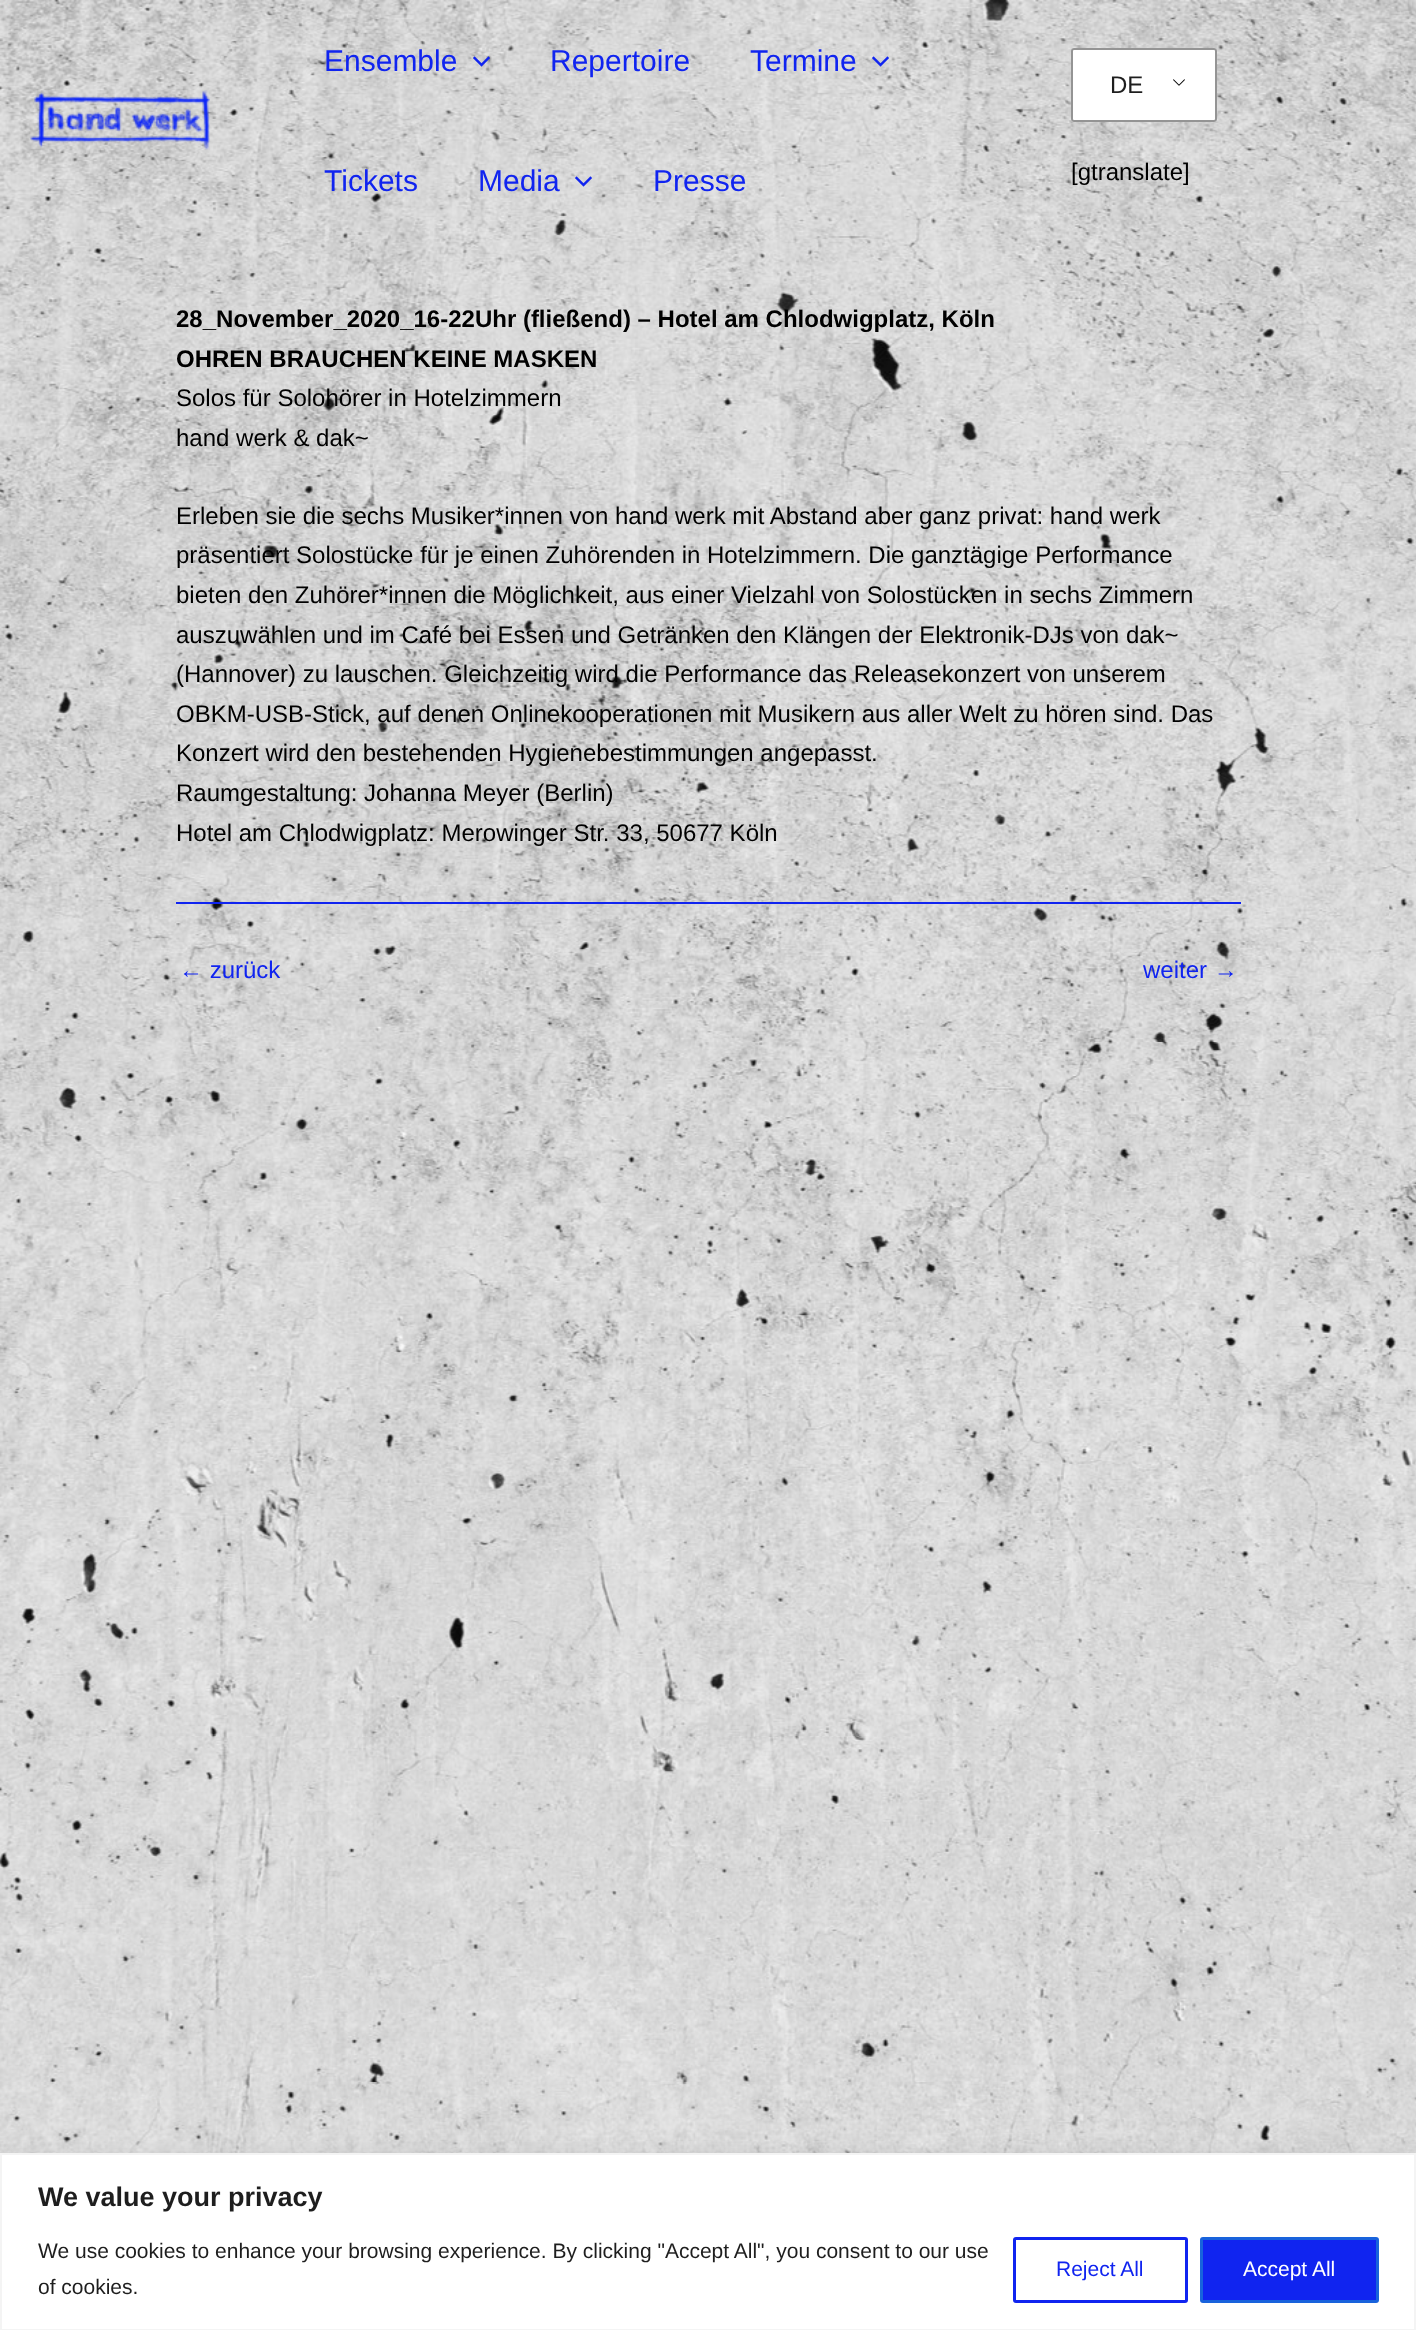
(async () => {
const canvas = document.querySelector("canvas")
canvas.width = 1416
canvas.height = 2330
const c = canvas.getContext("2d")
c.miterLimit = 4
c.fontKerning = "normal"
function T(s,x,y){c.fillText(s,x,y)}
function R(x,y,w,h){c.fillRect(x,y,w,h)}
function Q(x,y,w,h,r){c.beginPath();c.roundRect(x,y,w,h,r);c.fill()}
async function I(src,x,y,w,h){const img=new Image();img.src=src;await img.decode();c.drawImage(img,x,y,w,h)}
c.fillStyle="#fff"
R(0,0,1416,2330)
await I("6.png",0,0,1416,2153)
await I("1.png",30,90,180,60)
c.font="30px Liberation Sans"
c.fillStyle="#1024f0"
T("Ensemble",324,71)
await I("2.png",473,56,17,11)
T("Repertoire",550,71)
T("Termine",750,71)
await I("3.png",872,56,17,11)
T("Tickets",324,191)
T("Media",478,191)
await I("4.png",575,176,17,11)
T("Presse",653,191)
c.fillStyle="#fff"
Q(1071,48,146,74,3)
await I("5.png",1173,79,12,7)
c.beginPath()
c.roundRect(1072,49,144,72,2)
c.strokeStyle="#949494"
c.lineWidth=2
c.stroke()
c.font="24px Liberation Sans"
c.fillStyle="#1e1e1e"
T("DE",1110,93)
c.fillStyle="#000"
T("[gtranslate]",1071,180)
c.font="bold 24px Liberation Sans"
T("28_November_2020_16-22Uhr (fließend) – Hotel am Chlodwigplatz, Köln",176,327)
T("OHREN BRAUCHEN KEINE MASKEN",176,367)
c.font="24px Liberation Sans"
T("Solos für Solohörer in Hotelzimmern",176,406)
T("hand werk & dak~",176,446)
T("Erleben sie die sechs Musiker*innen von hand werk mit Abstand aber ganz privat: hand werk",176,524)
T("präsentiert Solostücke für je einen Zuhörenden in Hotelzimmern. Die ganztägige Performance",176,563)
T("bieten den Zuhörer*innen die Möglichkeit, aus einer Vielzahl von Solostücken in sechs Zimmern",176,603)
T("auszuwählen und im Café bei Essen und Getränken den Klängen der Elektronik-DJs von dak~",176,643)
T("(Hannover) zu lauschen. Gleichzeitig wird die Performance das Releasekonzert von unserem",176,682)
T("OBKM-USB-Stick, auf denen Onlinekooperationen mit Musikern aus aller Welt zu hören sind. Das",176,722)
T("Konzert wird den bestehenden Hygienebestimmungen angepasst.",176,761)
T("Raumgestaltung: Johanna Meyer (Berlin)",176,801)
T("Hotel am Chlodwigplatz: Merowinger Str. 33, 50677 Köln",176,841)
c.fillStyle="#1024f0"
R(176,902,1065,2)
T("← zurück",179,978)
T("weiter →",1143,978)
c.fillStyle="#acabab4d"
c.filter="blur(7.5px)"
c.beginPath()
c.rect(0,2151,1416,179)
c.fill()
c.filter="none"
c.fillStyle="#fff"
c.beginPath()
c.rect(1,2154,1414,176)
c.fill()
c.strokeStyle="#f4f4f4"
c.stroke()
c.font="bold 27px Liberation Sans"
c.fillStyle="#1e1e1e"
T("We value your privacy",38,2206)
c.font="21px Liberation Sans"
T("We use cookies to enhance your browsing experience. By clicking \"Accept All\", you consent to our use",38,2258)
T("of cookies.",38,2294)
c.beginPath()
c.roundRect(1014.5,2238.5,172,63,1.5)
c.strokeStyle="#1024f0"
c.lineWidth=3
c.stroke()
c.fillStyle="#1024f0"
T("Reject All",1056,2276)
c.beginPath()
c.roundRect(1201.5,2238.5,176,63,1.5)
c.fill()
c.strokeStyle="#1863dc"
c.stroke()
c.fillStyle="#fff"
T("Accept All",1243,2276)
})()
